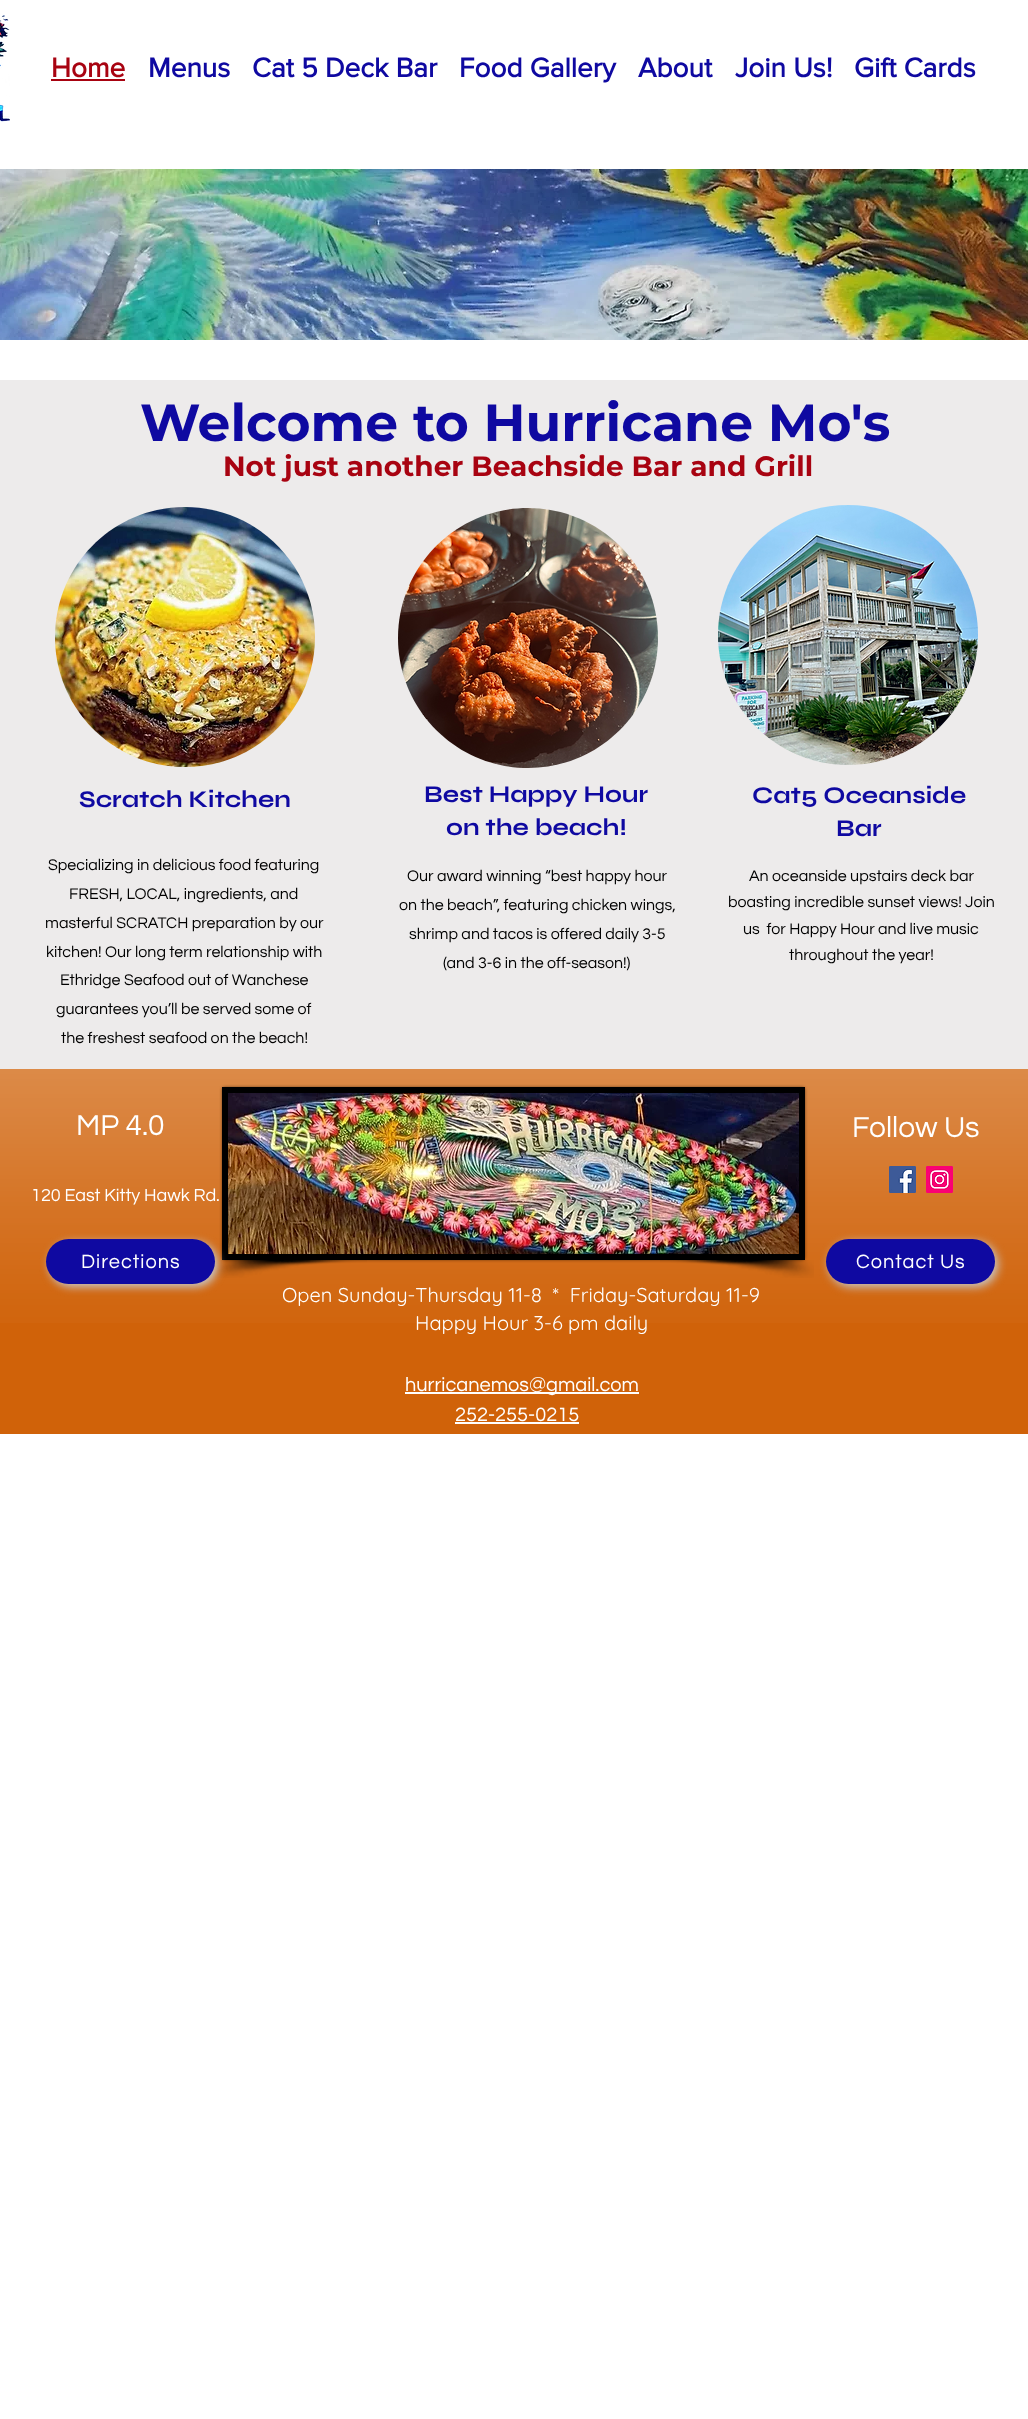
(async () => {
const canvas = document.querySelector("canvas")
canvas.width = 1028
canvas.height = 2419
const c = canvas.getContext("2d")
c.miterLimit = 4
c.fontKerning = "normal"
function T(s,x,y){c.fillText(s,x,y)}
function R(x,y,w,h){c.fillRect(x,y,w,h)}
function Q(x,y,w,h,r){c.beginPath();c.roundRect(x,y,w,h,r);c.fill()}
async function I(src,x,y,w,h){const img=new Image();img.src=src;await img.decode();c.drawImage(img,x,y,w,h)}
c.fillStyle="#fff"
R(0,0,1028,2419)
await I("1.png",0,15,10,107)
c.font="bold 28px 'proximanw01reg'"
c.fillStyle="#a80311"
T("Home",51,77)
R(51,79,74,2)
c.fillStyle="#0f09a1"
T("Menus",148,77)
T("Cat 5 Deck Bar",252,77)
T("Food Gallery",459,77)
T("About",638,77)
T("Join Us!",735,77)
T("Gift Cards",854,77)
await I("2.png",0,169,1028,171)
c.fillStyle="#edebeb"
R(0,380,1028,689)
c.font="bold 52px Montserrat"
c.fillStyle="#0f09a1"
T("Welcome to Hurricane Mo's",140,441)
c.font="bold 28px Montserrat"
c.fillStyle="#a80311"
T("Not just another Beachside Bar and Grill",223,476)
await I("3.png",55,507,260,260)
await I("4.png",398,508,260,260)
await I("5.png",718,505,260,260)
c.font="bold 24px Syne"
c.fillStyle="#0f09a1"
T("Scratch Kitchen",79,807)
T("Best Happy Hour",424,802)
T("on the beach!",446,835)
T("Cat5 Oceanside",752,803)
T("Bar",836,836)
c.font="16px Questrial"
c.fillStyle="#000"
T("Specializing in delicious food featuring",48,870)
T("FRESH, LOCAL, ingredients, and",69,899)
T("masterful SCRATCH preparation by our",45,928)
T("kitchen! Our long term relationship with",46,957)
T("Ethridge Seafood out of Wanchese",60,985)
T("guarantees you’ll be served some of",56,1014)
T("the freshest seafood on the beach!",61,1043)
T("Our award winning “best happy hour",407,881)
T("on the beach”, featuring chicken wings,",399,910)
T("shrimp and tacos is offered daily 3-5",409,939)
T("(and 3-6 in the off-season!)",443,968)
T("An oceanside upstairs deck bar",749,881)
T("boasting incredible sunset views! Join",728,907)
T("us  for Happy Hour and live music",743,934)
T("throughout the year!",789,960)
c.fillStyle="#d06209"
R(0,1069,1028,365)
await I("6.png",0,1069,1028,254)
c.font="30px Questrial"
c.fillStyle="#fff"
T("MP 4.0",76,1135)
c.fillStyle="#00000080"
c.filter="blur(1.5px)"
c.beginPath()
c.roundRect(222,1087,583,173,3)
c.fill()
c.filter="none"
c.beginPath()
c.rect(225,1090,577,167)
c.strokeStyle="#000"
c.lineWidth=6
c.stroke()
await I("7.png",228,1093,571,161)
await I("8.png",213,1260,154,18)
await I("9.png",660,1260,154,18)
c.fillStyle="#fff"
T("Follow Us",852,1137)
await I("10.png",889,1166,27,27)
await I("11.png",926,1166,27,27)
c.font="18px Questrial"
T("120 East Kitty Hawk Rd.",31,1201)
c.fillStyle="#c7c7c7"
c.filter="blur(4.5px)"
c.beginPath()
c.roundRect(49,1242,169,45,22.5)
c.fill()
c.filter="none"
c.fillStyle="#0f09a1"
Q(46,1239,169,45,22.5)
c.letterSpacing="1px"
c.font="20px Questrial"
c.fillStyle="#fff"
T("Directions",81,1268)
c.fillStyle="#c7c7c7"
c.filter="blur(5px)"
c.beginPath()
c.roundRect(829,1242,169,45,22.5)
c.fill()
c.filter="none"
c.fillStyle="#0f09a1"
Q(826,1239,169,45,22.5)
c.fillStyle="#fff"
T("Contact Us",856,1268)
c.letterSpacing="0px"
c.font="20px Quicksand"
T("Open Sunday-Thursday 11-8  *  Friday-Saturday 11-9",282,1302)
T("Happy Hour 3-6 pm daily",415,1330)
R(405,1392,234,2)
c.font="20px Questrial"
T("hurricanemos@gmail.com",405,1391)
T("252-255-0215",455,1421)
R(455,1422,124,2)
})()
